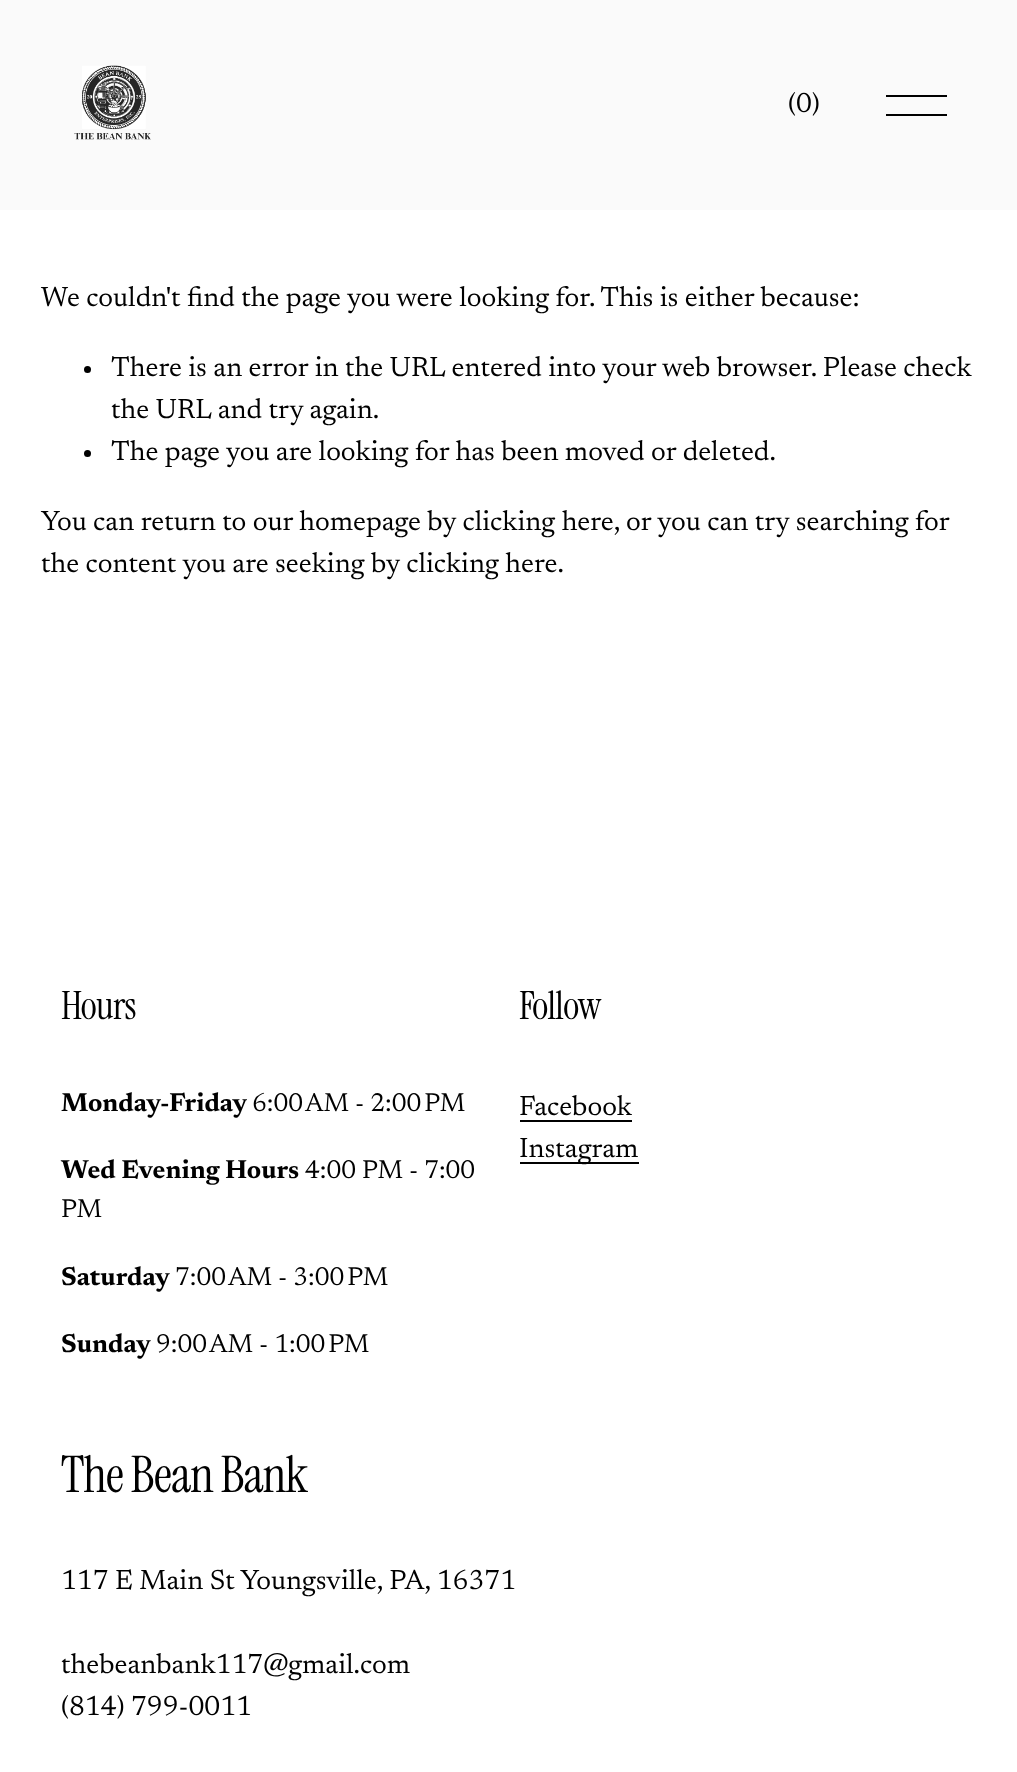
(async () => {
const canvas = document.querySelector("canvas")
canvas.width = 1017
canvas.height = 1772
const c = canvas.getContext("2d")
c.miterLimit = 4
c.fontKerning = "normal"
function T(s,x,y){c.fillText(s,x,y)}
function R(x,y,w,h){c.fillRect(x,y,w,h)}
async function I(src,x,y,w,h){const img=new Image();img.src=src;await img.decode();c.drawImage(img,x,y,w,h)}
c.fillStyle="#fff"
R(0,0,1017,1772)
c.fillStyle="#fafafa"
R(0,0,1017,210)
await I("1.png",74,65,77,75)
c.font="28px Newsreader"
c.fillStyle="#000"
T("(0)",788,112)
R(886,95,61,2)
R(886,114,61,2)
T("We couldn't find the page you were looking for. This is either because:",41,306)
c.beginPath()
c.arc(87.5,369.5,3.5,0,7)
c.fill()
T("There is an error in the URL entered into your web browser. Please check",111,376)
T("the URL and try again.",111,418)
c.beginPath()
c.arc(87.5,453.5,3.5,0,7)
c.fill()
T("The page you are looking for has been moved or deleted.",111,460)
T("You can return to our homepage by clicking here, or you can try searching for",41,530)
T("the content you are seeking by clicking here.",41,572)
c.letterSpacing="-0.75px"
c.font="39px Instrument Serif"
T("Hours",61,1019)
c.letterSpacing="0px"
c.font="bold 26.1px Newsreader"
T("Monday-Friday",61,1111)
c.font="26.1px Newsreader"
T("6:00 AM - 2:00 PM",252,1111)
c.font="bold 26.1px Newsreader"
T("Wed Evening Hours",61,1178)
c.font="26.1px Newsreader"
T("4:00 PM - 7:00",305,1178)
T("PM",61,1217)
c.font="bold 26.1px Newsreader"
T("Saturday",61,1285)
c.font="26.1px Newsreader"
T("7:00 AM - 3:00 PM",175,1285)
c.font="bold 26.1px Newsreader"
T("Sunday",61,1352)
c.font="26.1px Newsreader"
T("9:00 AM - 1:00 PM",156,1352)
c.letterSpacing="-0.75px"
c.font="39px Instrument Serif"
T("Follow",519,1019)
c.letterSpacing="0px"
c.font="28px Newsreader"
T("Facebook",519,1115)
R(520,1120,112,2)
R(520,1162,119,2)
T("Instagram",519,1157)
c.letterSpacing="-1px"
c.font="50.5px Instrument Serif"
T("The Bean Bank",61,1492)
c.letterSpacing="0px"
c.font="28px Newsreader"
T("117 E Main St Youngsville, PA, 16371",61,1589)
T("thebeanbank117@gmail.com",61,1673)
T("(814) 799-0011",61,1715)
})()
